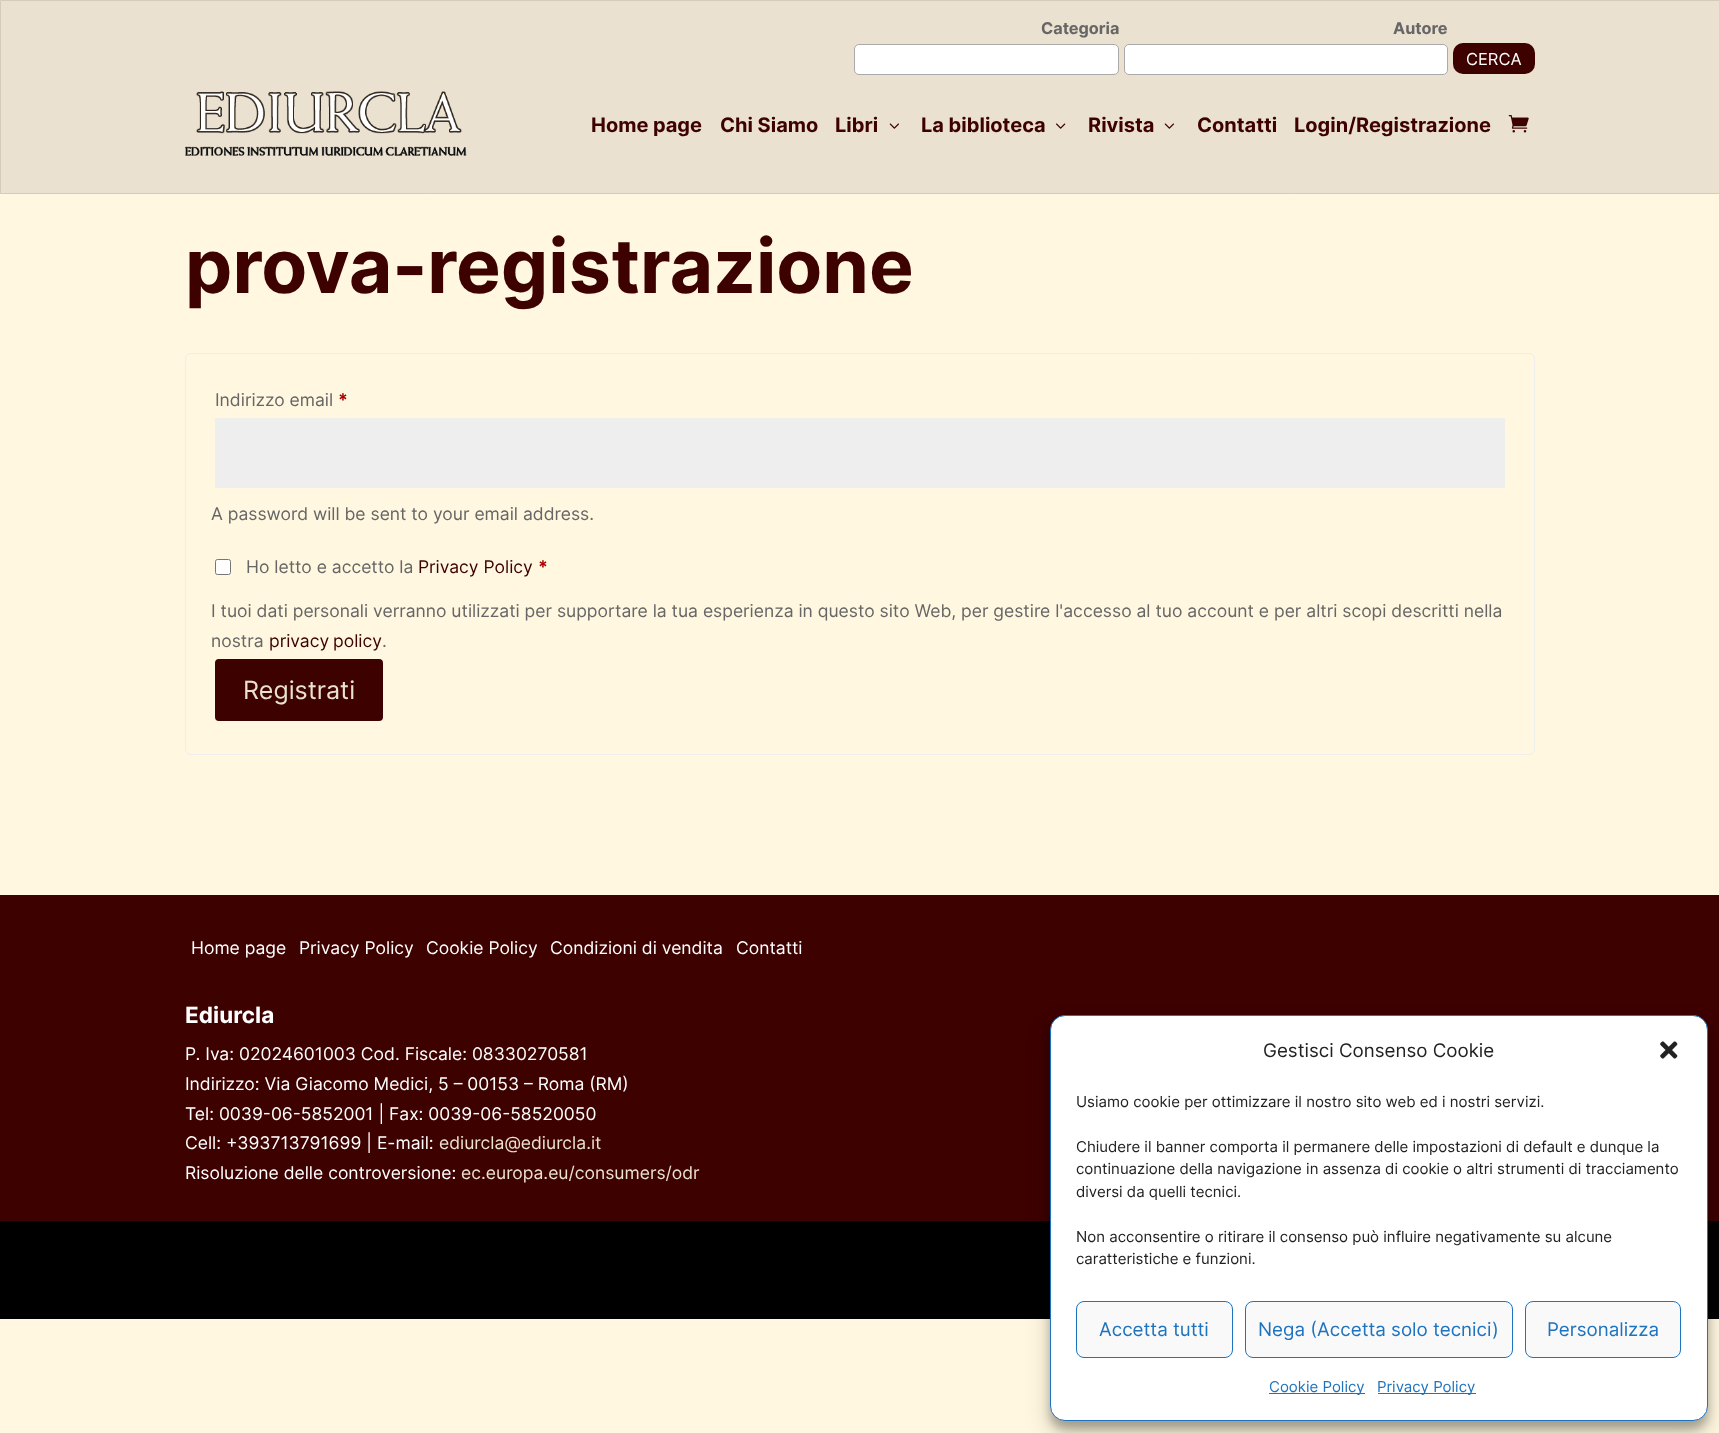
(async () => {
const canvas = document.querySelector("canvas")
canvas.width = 1719
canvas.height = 1433
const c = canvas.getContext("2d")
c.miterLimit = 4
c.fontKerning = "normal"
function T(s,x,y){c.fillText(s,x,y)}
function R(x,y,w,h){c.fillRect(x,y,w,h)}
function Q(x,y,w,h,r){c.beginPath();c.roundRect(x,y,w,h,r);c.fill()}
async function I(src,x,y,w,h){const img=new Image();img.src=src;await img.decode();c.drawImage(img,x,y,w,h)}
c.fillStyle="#fff7df"
R(0,0,1719,1433)
c.fillStyle="#eae1d0"
c.beginPath()
c.rect(.5,.5,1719,193)
c.fill()
c.strokeStyle="#d3cbbb"
c.stroke()
c.font="bold 16.25px Inter"
c.fillStyle="#666"
T("Categoria",1041,34)
c.fillStyle="#fff"
c.beginPath()
c.roundRect(854.5,44.5,264,30,4.5)
c.fill()
c.strokeStyle="#aaa"
c.stroke()
c.fillStyle="#666"
T("Autore",1393,34)
c.fillStyle="#fff"
c.beginPath()
c.roundRect(1124.5,44.5,323,30,4.5)
c.fill()
c.stroke()
c.fillStyle="#3d0100"
Q(1453,43,82,31,10)
c.font="16.5px Inter"
c.fillStyle="#fff"
T("CERCA",1466,65)
await I("1.png",185,91,282,65)
c.font="bold 20px Inter"
c.fillStyle="#3d0100"
T("Home page",591,132)
T("Chi Siamo",720,132)
T("Libri",835,132)
await I("2.png",889,123,10,6)
T("La biblioteca",921,132)
await I("3.png",1056,123,10,6)
T("Rivista",1088,132)
await I("2.png",1164,123,10,6)
T("Contatti",1197,132)
T("Login/Registrazione",1294,132)
await I("4.png",1508,115,21,18)
c.font="bold 75px Inter"
T("prova-registrazione",185,293)
c.beginPath()
c.roundRect(185.5,353.5,1349,401,5.5)
c.strokeStyle="#eee"
c.stroke()
c.font="17.5px Inter"
c.fillStyle="#666"
T("Indirizzo email",215,406)
c.font="bold 17.5px Inter"
c.fillStyle="#a00"
T("*",338,406)
c.fillStyle="#eee"
R(215,418,1290,70)
c.font="17.5px Inter"
c.fillStyle="#666"
T("A password will be sent to your email address.",211,520)
c.fillStyle="#fff"
c.beginPath()
c.roundRect(215.5,559.5,15,15,2)
c.fill()
c.strokeStyle="#767676"
c.stroke()
c.fillStyle="#666"
T("Ho letto e accetto la",246,573)
c.fillStyle="#3d0100"
T("Privacy Policy",418,573)
c.font="bold 17.5px Inter"
c.fillStyle="#a00"
T("*",538,573)
c.font="17.5px Inter"
c.fillStyle="#666"
T("I tuoi dati personali verranno utilizzati per supportare la tua esperienza in questo sito Web, per gestire l'accesso al tuo account e per altri scopi descritti nella",211,617)
T("nostra",211,647)
c.wordSpacing="-1px"
c.fillStyle="#3d0100"
T("privacy policy",269,647)
c.wordSpacing="0px"
c.fillStyle="#666"
T(".",382,647)
c.fillStyle="#3d0100"
c.beginPath()
c.roundRect(216.5,660.5,165,59,2.5)
c.fill()
c.strokeStyle="#3d0100"
c.lineWidth=3
c.stroke()
c.font="25px Inter"
c.fillStyle="#eae1d0"
T("Registrati",243,699)
c.fillStyle="#3d0100"
R(0,895,1719,326)
c.font="17.5px Inter"
c.fillStyle="#fff"
T("Home page",191,954)
T("Privacy Policy",299,954)
T("Cookie Policy",426,954)
T("Condizioni di vendita",550,954)
T("Contatti",736,954)
c.font="bold 22.5px Inter"
T("Ediurcla",185,1023)
c.font="17.5px Inter"
T("P. Iva: 02024601003 Cod. Fiscale: 08330270581",185,1060)
T("Indirizzo: Via Giacomo Medici, 5 – 00153 – Roma (RM)",185,1090)
T("Tel: 0039-06-5852001 | Fax: 0039-06-58520050",185,1120)
T("Cell: +393713791699 | E-mail:",185,1149)
c.fillStyle="#eae1d0"
T("ediurcla@ediurcla.it",439,1149)
c.fillStyle="#fff"
T("Risoluzione delle controversione:",185,1179)
c.fillStyle="#eae1d0"
T("ec.europa.eu/consumers/odr",461,1179)
c.fillStyle="#000"
R(0,1221,1719,98)
c.fillStyle="#0000003b"
c.filter="blur(4px)"
c.beginPath()
c.roundRect(1050,1023,658,406,15)
c.fill()
c.filter="none"
c.fillStyle="#00000030"
c.filter="blur(12.5px)"
c.beginPath()
c.roundRect(1050,1028,658,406,15)
c.fill()
c.filter="none"
c.fillStyle="#fff"
c.beginPath()
c.roundRect(1050.5,1015.5,657,405,14.5)
c.fill()
c.strokeStyle="#1e73be"
c.lineWidth=1
c.stroke()
c.font="18.75px Inter"
c.fillStyle="#222"
T("Gestisci Consenso Cookie",1263,1057)
await I("5.png",1660,1041,18,18)
c.font="15px Inter"
T("Usiamo cookie per ottimizzare il nostro sito web ed i nostri servizi.",1076,1107)
T("Chiudere il banner comporta il permanere delle impostazioni di default e dunque la",1076,1152)
T("continuazione della navigazione in assenza di cookie o altri strumenti di tracciamento",1076,1174)
T("diversi da quelli tecnici.",1076,1197)
T("Non acconsentire o ritirare il consenso può influire negativamente su alcune",1076,1242)
T("caratteristiche e funzioni.",1076,1264)
c.fillStyle="#f9f9f9"
c.beginPath()
c.roundRect(1076.5,1301.5,156,56,7.5)
c.fill()
c.stroke()
c.font="18.75px Inter"
c.fillStyle="#1e73be"
T("Accetta tutti",1099,1336)
c.fillStyle="#f9f9f9"
c.beginPath()
c.roundRect(1245.5,1301.5,267,56,7.5)
c.fill()
c.stroke()
c.fillStyle="#1e73be"
T("Nega (Accetta solo tecnici)",1258,1336)
c.fillStyle="#f9f9f9"
c.beginPath()
c.roundRect(1525.5,1301.5,155,56,7.5)
c.fill()
c.stroke()
c.fillStyle="#1e73be"
T("Personalizza",1547,1336)
R(1269,1393,96,1)
c.font="15px Inter"
T("Cookie Policy",1269,1392)
R(1378,1393,98,1)
T("Privacy Policy",1377,1392)
})()
